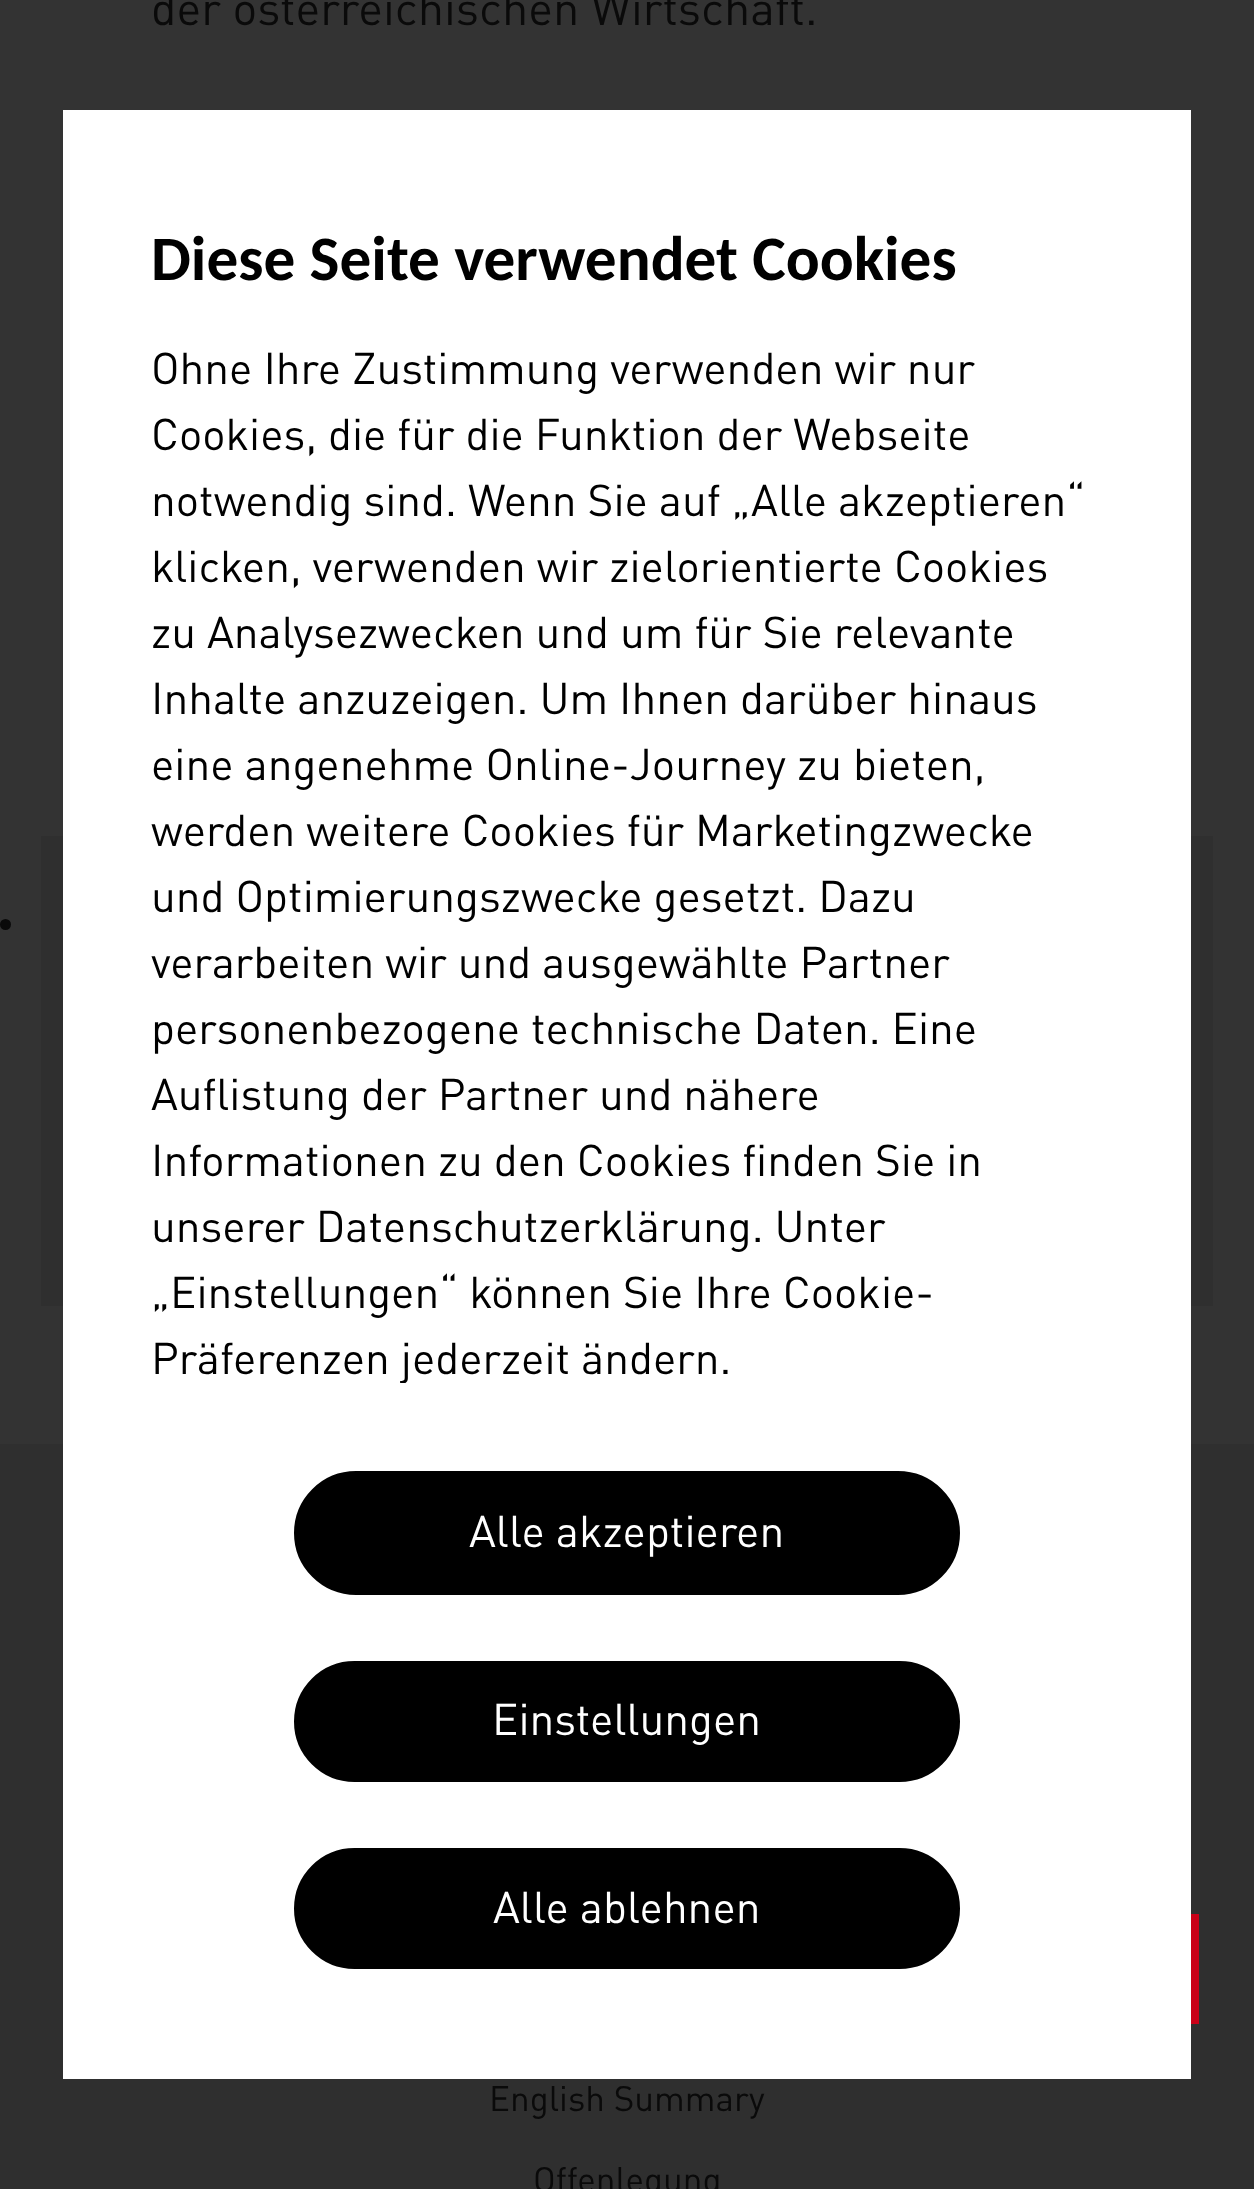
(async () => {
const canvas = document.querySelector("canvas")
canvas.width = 1254
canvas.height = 2189
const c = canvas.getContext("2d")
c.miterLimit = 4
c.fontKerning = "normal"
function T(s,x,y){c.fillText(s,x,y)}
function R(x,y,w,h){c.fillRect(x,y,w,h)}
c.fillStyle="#333"
R(0,0,1254,2189)
c.font="46.75px DIN"
c.fillStyle="#0a0a0a"
T("der österreichischen Wirtschaft.",151,25)
c.beginPath()
c.arc(5.5,924.5,5.5,0,7)
c.fill()
c.fillStyle="#2f2f2f"
R(41,836,1172,470)
R(0,1444,1254,745)
c.font="35px DIN"
c.fillStyle="#0a0a0a"
T("English Summary",489,2111)
T("Offenlegung",533,2192)
c.fillStyle="#fff"
R(63,110,1128,1969)
c.font="bold 63.25px Carlito"
c.fillStyle="#000"
T("Diese Seite verwendet Cookies",151,280)
c.font="44px DIN"
T("Ohne Ihre Zustimmung verwenden wir nur",151,384)
T("Cookies, die für die Funktion der Webseite",151,450)
T("notwendig sind. Wenn Sie auf „Alle akzeptieren“",151,516)
T("klicken, verwenden wir zielorientierte Cookies",151,582)
T("zu Analysezwecken und um für Sie relevante",151,648)
T("Inhalte anzuzeigen. Um Ihnen darüber hinaus",151,714)
T("eine angenehme Online-Journey zu bieten,",151,780)
T("werden weitere Cookies für Marketingzwecke",151,846)
T("und Optimierungszwecke gesetzt. Dazu",151,912)
T("verarbeiten wir und ausgewählte Partner",151,978)
T("personenbezogene technische Daten. Eine",151,1044)
T("Auflistung der Partner und nähere",151,1110)
T("Informationen zu den Cookies finden Sie in",151,1176)
T("unserer Datenschutzerklärung. Unter",151,1242)
T("„Einstellungen“ können Sie Ihre Cookie-",151,1308)
T("Präferenzen jederzeit ändern.",151,1374)
c.fillStyle="#fff"
R(399,1383,6,1)
c.fillStyle="#000"
c.beginPath()
c.roundRect(295.5,1472.5,663,121,60.5)
c.fill()
c.strokeStyle="#000"
c.lineWidth=3
c.stroke()
c.fillStyle="#fff"
T("Alle akzeptieren",469,1547)
c.fillStyle="#000"
c.beginPath()
c.roundRect(295.5,1662.5,663,118,59)
c.fill()
c.stroke()
c.fillStyle="#fff"
T("Einstellungen",492,1735)
c.fillStyle="#000"
c.beginPath()
c.roundRect(295.5,1849.5,663,118,59)
c.fill()
c.stroke()
c.fillStyle="#fff"
T("Alle ablehnen",493,1923)
c.fillStyle="#c90017"
R(1191,1914,8,110)
})()
